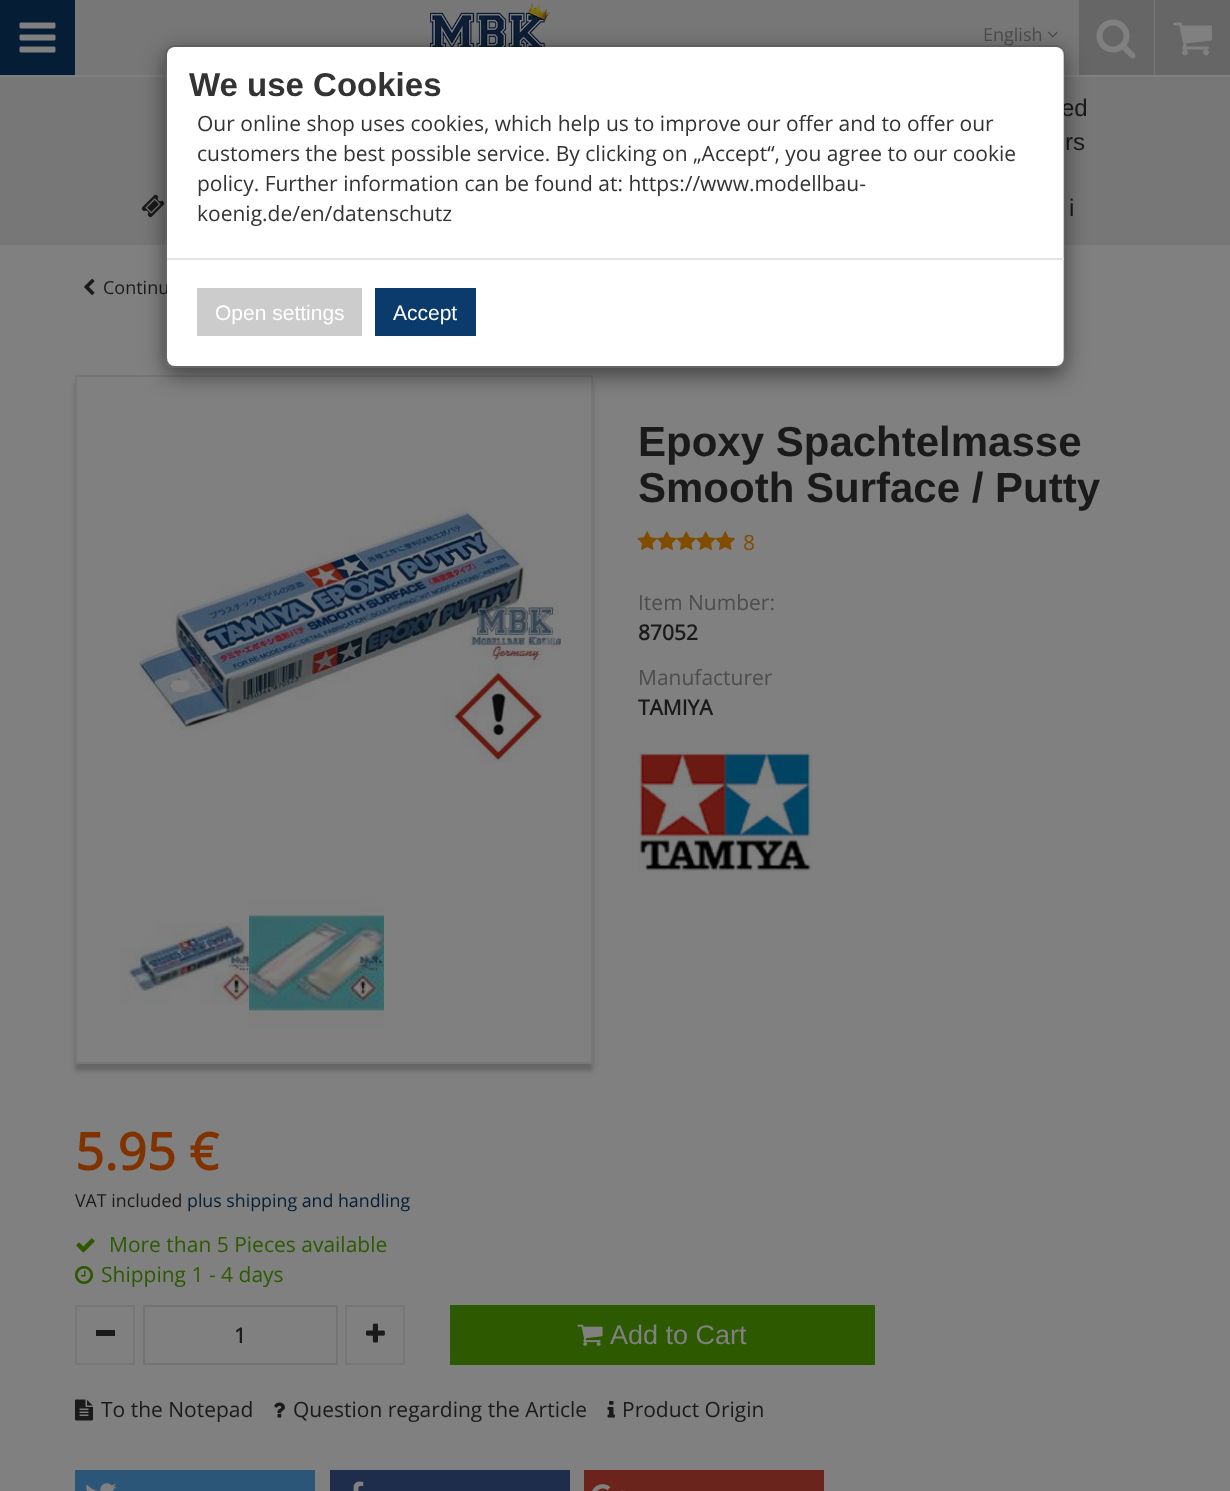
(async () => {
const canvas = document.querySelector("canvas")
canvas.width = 1230
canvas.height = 1491
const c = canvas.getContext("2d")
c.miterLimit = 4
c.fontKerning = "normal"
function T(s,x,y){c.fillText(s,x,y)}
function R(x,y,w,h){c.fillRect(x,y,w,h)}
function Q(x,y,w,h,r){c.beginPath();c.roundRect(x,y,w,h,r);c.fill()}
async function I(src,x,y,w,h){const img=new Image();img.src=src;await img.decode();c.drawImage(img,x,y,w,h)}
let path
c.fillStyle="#808080"
R(0,0,1230,1491)
c.fillStyle="#777"
R(75,0,1080,75)
c.fillStyle="#051e36"
R(0,0,75,75)
await I("1.png",19,22,37,31)
await I("2.png",430,3,120,44)
c.font="18px Open Sans"
c.fillStyle="#4d4d4d"
T("English",983,41)
await I("3.png",1047,31,11,7)
c.fillStyle="#666"
R(1079,0,75,75)
await I("4.png",1096,19,40,40)
R(1155,0,75,75)
await I("5.png",1173,22,39,34)
c.fillStyle="#777"
R(0,77,1230,168)
c.font="24px Liberation Sans"
c.fillStyle="#1a1a1a"
T("ed",1061,116)
T("rs",1065,150)
await I("6.png",141,194,24,24)
T("i",1069,216)
await I("7.png",84,278,11,17)
c.font="18px Open Sans"
T("Continu",103,294)
c.save()
path = new Path2D("M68 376h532v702h-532zm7-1h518v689h-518z")
c.clip(path,"evenodd")
c.fillStyle="#00000033"
c.filter="blur(2px)"
c.beginPath()
c.rect(75,383,518,688)
c.fill()
c.filter="none"
c.restore()
c.strokeStyle="#777"
c.lineWidth=2
c.strokeRect(76,376,516,687)
await I("8.png",138,507,423,256)
await I("9.png",539,611,21,38)
await I("10.png",120,922,129,83)
await I("11.png",249,899,135,128)
c.font="bold 42px Liberation Sans"
T("Epoxy Spachtelmasse",638,456)
T("Smooth Surface / Putty",638,502)
await I("12.png",637,531,20,19)
await I("13.png",657,531,20,19)
await I("14.png",676,531,20,19)
await I("13.png",696,531,20,19)
await I("14.png",715,531,20,19)
c.font="21px Open Sans"
c.fillStyle="#804d00"
T("8",743,550)
c.fillStyle="#4d4d4d"
T("Item Number:",638,610)
c.font="bold 21px Open Sans"
c.fillStyle="#1a1a1a"
T("87052",638,640)
c.font="21px Open Sans"
c.fillStyle="#4d4d4d"
T("Manufacturer",638,685)
c.font="bold 21px Open Sans"
c.fillStyle="#1a1a1a"
T("TAMIYA",638,715)
await I("15.png",637,751,176,121)
c.font="bold 51px Open Sans"
c.fillStyle="#803300"
T("5.95 €",75,1170)
c.font="17.8px Open Sans"
c.fillStyle="#1a1a1a"
T("VAT included",75,1207)
c.fillStyle="#051e36"
T("plus shipping and handling",187,1207)
await I("16.png",76,1238,19,15)
c.font="21px Open Sans"
c.fillStyle="#2d5900"
T("More than 5 Pieces available",109,1252)
await I("17.png",75,1266,18,18)
T("Shipping 1 - 4 days",101,1282)
c.strokeRect(76,1306,58,58)
c.fillStyle="#1a1a1a"
R(96,1330,19,6)
c.strokeStyle="#737373"
c.strokeRect(144,1306,193,58)
c.font="bold 21px Open Sans"
T("1",234,1343)
c.strokeStyle="#777"
c.strokeRect(346,1306,58,58)
await I("18.png",366,1323,19,20)
c.fillStyle="#2d5900"
R(450,1305,425,60)
await I("19.png",577,1324,26,22)
c.font="27px Liberation Sans"
c.fillStyle="#808080"
T("Add to Cart",610,1344)
await I("20.png",75,1399,18,22)
c.font="21px Open Sans"
c.fillStyle="#1a1a1a"
T("To the Notepad",101,1417)
await I("21.png",274,1402,11,16)
T("Question regarding the Article",293,1417)
await I("22.png",607,1401,8,17)
T("Product Origin",622,1417)
c.fillStyle="#2b5677"
R(75,1470,240,21)
await I("23.png",86,1483,31,8)
c.fillStyle="#1e2d4c"
R(330,1470,240,21)
await I("24.png",353,1481,11,10)
c.fillStyle="#6a241b"
R(584,1470,240,21)
await I("25.png",592,1484,33,7)
c.save()
path = new Path2D("M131 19h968v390h-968zm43 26h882c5 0 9 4 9 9v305c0 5-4 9-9 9h-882c-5 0-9-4-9-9v-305c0-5 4-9 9-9z")
c.clip(path,"evenodd")
c.fillStyle="#00000080"
c.filter="blur(11px)"
c.beginPath()
c.roundRect(165,53,900,322,9)
c.fill()
c.filter="none"
c.restore()
c.fillStyle="#fff"
Q(167,47,897,319,8)
c.beginPath()
c.roundRect(166,46,898,321,8)
c.strokeStyle="#00000033"
c.stroke()
c.font="bold 33px Liberation Sans"
c.fillStyle="#333"
T("We use Cookies",189,96)
c.font="21px Open Sans"
T("Our online shop uses cookies, which help us to improve our offer and to offer our",197,131)
T("customers the best possible service. By clicking on „Accept“, you agree to our cookie",197,161)
T("policy. Further information can be found at: https://www.modellbau-",197,191)
T("koenig.de/en/datenschutz",197,221)
c.fillStyle="#e5e5e5"
R(167,258,897,2)
c.fillStyle="#ccc"
R(197,288,165,48)
c.font="21px Liberation Sans"
c.fillStyle="#fff"
T("Open settings",215,320)
c.fillStyle="#0a3b6c"
R(375,288,101,48)
c.fillStyle="#fff"
T("Accept",393,320)
})()
